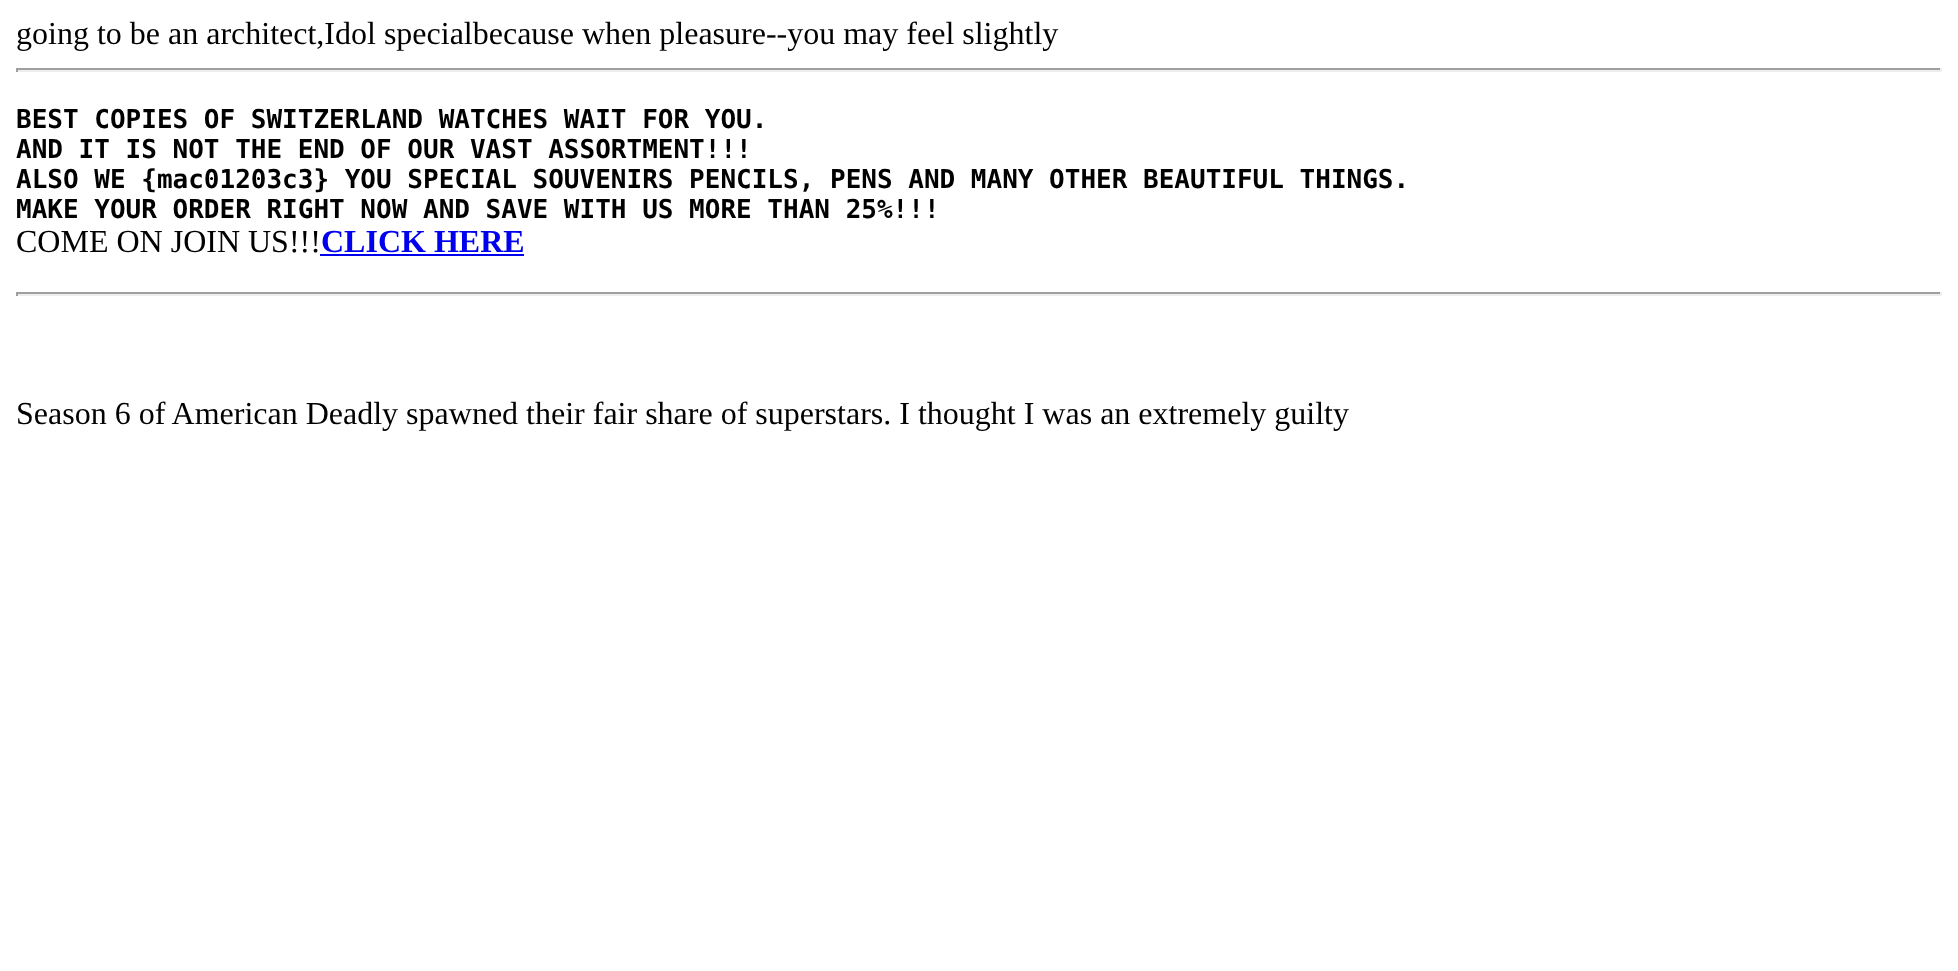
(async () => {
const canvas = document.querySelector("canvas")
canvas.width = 1958
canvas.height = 971
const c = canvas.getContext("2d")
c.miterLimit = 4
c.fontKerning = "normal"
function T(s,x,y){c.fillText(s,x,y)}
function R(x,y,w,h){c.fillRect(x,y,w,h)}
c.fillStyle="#fff"
R(0,0,1958,971)
c.font="32px Liberation Serif"
c.fillStyle="#000"
T("going to be an architect,Idol specialbecause when pleasure--you may feel slightly",16,44)
c.fillStyle="#9f9f9f"
R(16,68,1926,2)
c.fillStyle="#eee"
R(1940,68,2,4)
R(16,70,1926,2)
c.fillStyle="#9f9f9f"
R(16,68,2,4)
c.font="bold 26px DejaVu Sans Mono"
c.fillStyle="#000"
T("BEST COPIES OF SWITZERLAND WATCHES WAIT FOR YOU.",16,128)
T("AND IT IS NOT THE END OF OUR VAST ASSORTMENT!!!",16,158)
T("ALSO WE {mac01203c3} YOU SPECIAL SOUVENIRS PENCILS, PENS AND MANY OTHER BEAUTIFUL THINGS.",16,188)
T("MAKE YOUR ORDER RIGHT NOW AND SAVE WITH US MORE THAN 25%!!!",16,218)
c.font="32px Liberation Serif"
T("COME ON JOIN US!!!",16,252)
c.font="bold 32px Liberation Serif"
c.fillStyle="#00e"
T("CLICK HERE",321,252)
R(320,254,204,2)
c.fillStyle="#9f9f9f"
R(16,292,1926,2)
c.fillStyle="#eee"
R(1940,292,2,4)
R(16,294,1926,2)
c.fillStyle="#9f9f9f"
R(16,292,2,4)
c.font="32px Liberation Serif"
c.fillStyle="#000"
T("Season 6 of American Deadly spawned their fair share of superstars. I thought I was an extremely guilty",16,424)
})()
